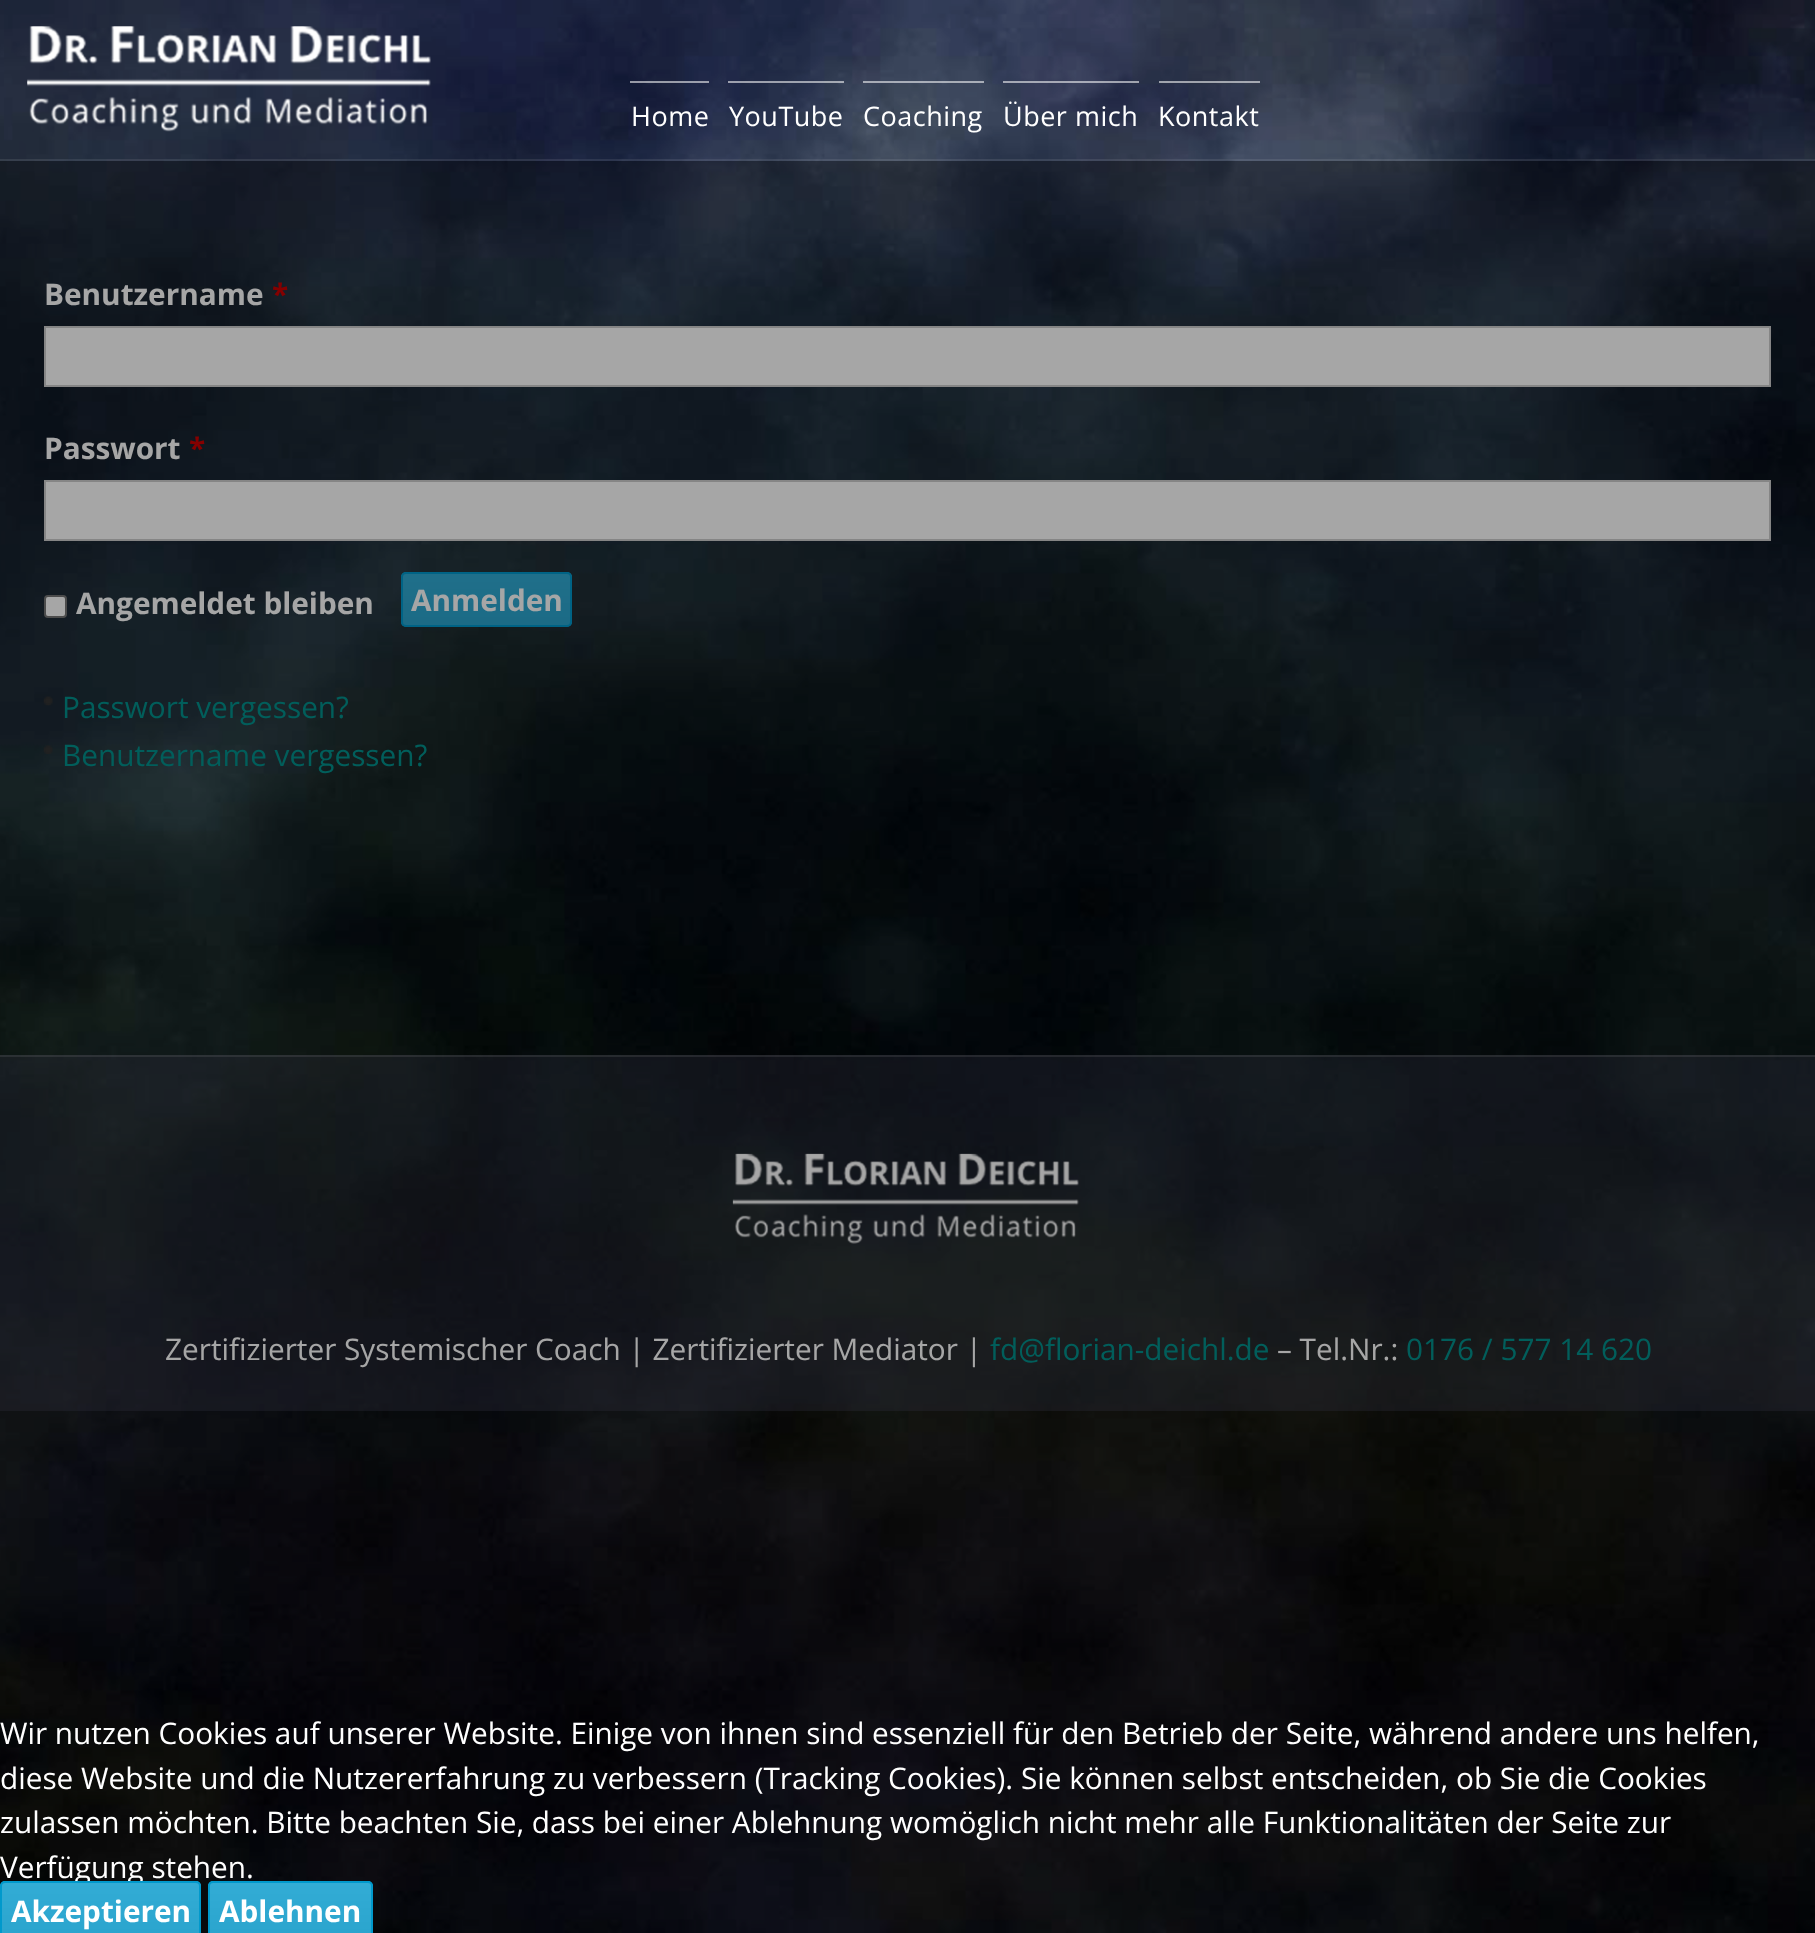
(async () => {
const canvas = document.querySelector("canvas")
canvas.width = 1815
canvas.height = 1933
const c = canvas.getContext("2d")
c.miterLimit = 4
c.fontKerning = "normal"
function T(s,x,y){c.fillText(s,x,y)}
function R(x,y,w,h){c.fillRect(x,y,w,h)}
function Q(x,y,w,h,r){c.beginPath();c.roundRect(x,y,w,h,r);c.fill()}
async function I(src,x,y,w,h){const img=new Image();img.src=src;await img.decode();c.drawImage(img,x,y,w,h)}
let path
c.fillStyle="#fff"
R(0,0,1815,1933)
await I("1.png",0,0,1815,1933)
c.font="bold 29.75px Open Sans"
T("Benutzername",44,305)
c.fillStyle="#c00"
T("*",272,305)
c.fillStyle="#fff"
c.beginPath()
c.rect(45,327,1725,59)
c.fill()
c.strokeStyle="#ccc"
c.lineWidth=2
c.stroke()
T("Passwort",44,459)
c.fillStyle="#c00"
T("*",189,459)
c.fillStyle="#fff"
c.beginPath()
c.rect(45,481,1725,59)
c.fill()
c.stroke()
c.beginPath()
c.roundRect(45,596,21,21,3)
c.fill()
c.strokeStyle="#767676"
c.stroke()
T("Angemeldet bleiben",76,614)
c.fillStyle="#09c"
Q(401,572,171,55,5)
await I("4.png",401,572,171,55)
c.beginPath()
c.roundRect(402,573,169,53,4)
c.strokeStyle="#09c"
c.stroke()
c.fillStyle="#fff"
T("Anmelden",411,611)
await I("5.png",43,696,10,10)
c.font="29.75px Open Sans"
c.fillStyle="#03918c"
T("Passwort vergessen?",62,718)
await I("6.png",43,745,10,9)
T("Benutzername vergessen?",62,766)
c.fillStyle="#46465b59"
R(0,1055,1815,356)
c.fillStyle="#ffffff24"
R(0,1055,1815,2)
await I("7.png",732,1153,347,91)
c.fillStyle="#fff"
T("Zertifizierter Systemischer Coach | Zertifizierter Mediator |",165,1360)
c.fillStyle="#03918c"
T("fd@florian-deichl.de",990,1360)
c.fillStyle="#fff"
T("– Tel.Nr.:",1277,1360)
c.fillStyle="#03918c"
T("0176 / 577 14 620",1406,1360)
c.fillStyle="#00000059"
path = new Path2D("M-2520-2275v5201h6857v-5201zm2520 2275v161h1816v-161z")
c.fill(path,"evenodd")
await I("2.png",4,0,1811,160)
c.fillStyle="#ffffff17"
R(0,159,1815,2)
await I("3.png",27,26,404,106)
c.fillStyle="#ffffff8f"
R(630,81,79,2)
c.letterSpacing="0.5px"
c.font="27px Open Sans"
c.fillStyle="#fff"
T("Home",631,126)
c.fillStyle="#ffffff8f"
R(728,81,116,2)
c.fillStyle="#fff"
T("YouTube",729,126)
c.fillStyle="#ffffff8f"
R(863,81,121,2)
c.fillStyle="#fff"
T("Coaching",863,126)
c.fillStyle="#ffffff8f"
R(1003,81,136,2)
c.fillStyle="#fff"
T("Über mich",1003,126)
c.fillStyle="#ffffff8f"
R(1159,81,101,2)
c.fillStyle="#fff"
T("Kontakt",1158,126)
c.letterSpacing="0px"
c.font="29.75px Open Sans"
T("Wir nutzen Cookies auf unserer Website. Einige von ihnen sind essenziell für den Betrieb der Seite, während andere uns helfen,",0,1744)
T("diese Website und die Nutzererfahrung zu verbessern (Tracking Cookies). Sie können selbst entscheiden, ob Sie die Cookies",0,1789)
T("zulassen möchten. Bitte beachten Sie, dass bei einer Ablehnung womöglich nicht mehr alle Funktionalitäten der Seite zur",0,1833)
T("Verfügung stehen.",0,1878)
c.fillStyle="#09c"
Q(0,1881,201,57,5)
await I("8.png",0,1881,201,52)
Q(208,1881,165,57,5)
await I("9.png",208,1881,165,52)
c.beginPath()
c.roundRect(1,1882,199,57,4)
c.stroke()
c.font="bold 29.75px Open Sans"
c.fillStyle="#fff"
T("Akzeptieren",11,1922)
c.beginPath()
c.roundRect(209,1882,163,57,4)
c.stroke()
T("Ablehnen",219,1922)
})()
